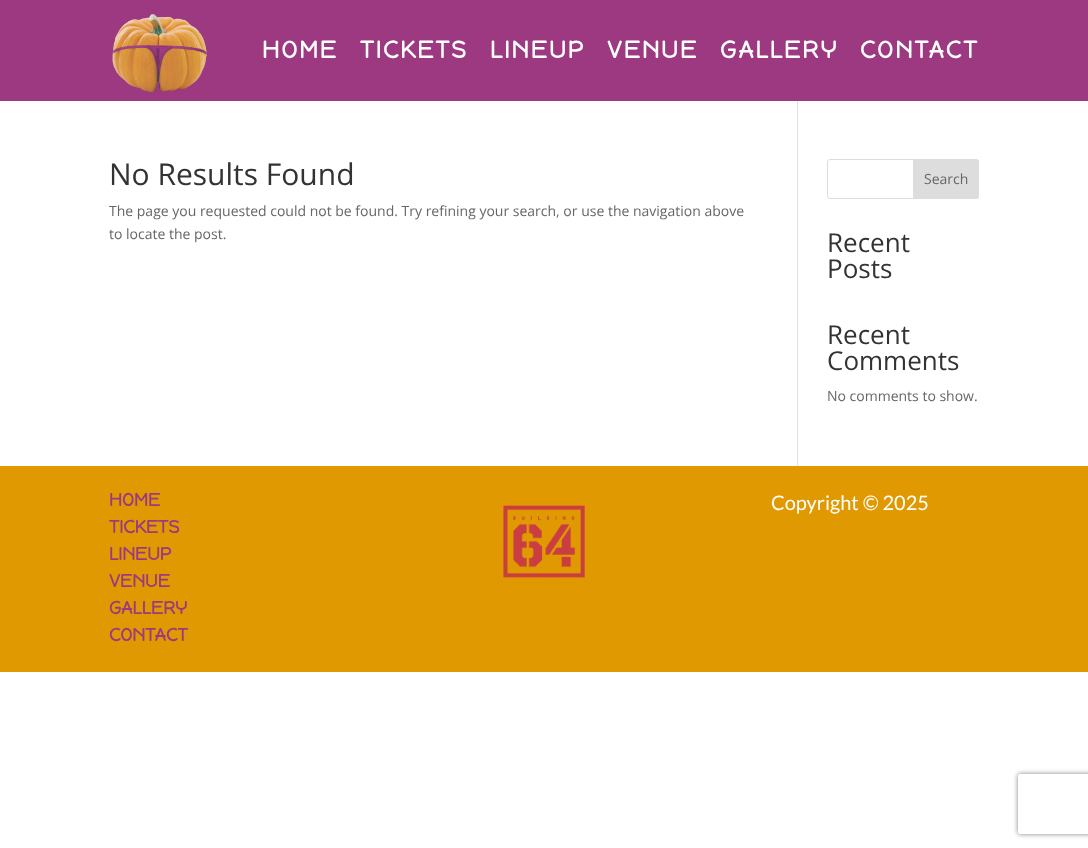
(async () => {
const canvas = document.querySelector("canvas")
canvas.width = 1088
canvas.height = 848
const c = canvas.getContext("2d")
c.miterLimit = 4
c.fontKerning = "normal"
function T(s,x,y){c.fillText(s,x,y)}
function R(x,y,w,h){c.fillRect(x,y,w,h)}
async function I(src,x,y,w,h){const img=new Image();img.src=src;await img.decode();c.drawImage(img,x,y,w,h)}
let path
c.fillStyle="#fff"
R(0,0,1088,848)
c.fillStyle="#9c3981"
R(0,0,1088,101)
await I("1.png",112,14,95,79)
c.letterSpacing="2px"
c.font="bold 24px Happy Monkey"
c.fillStyle="#fff"
T("HOME",262,58)
T("TICKETS",360,58)
T("LINEUP",490,58)
T("VENUE",607,58)
T("GALLERY",720,58)
T("CONTACT",860,58)
c.fillStyle="#e2e2e2"
R(797,101,1,365)
c.letterSpacing="0px"
c.font="30px Open Sans"
c.fillStyle="#333"
T("No Results Found",109,185)
c.font="14px Open Sans"
c.fillStyle="#666"
T("The page you requested could not be found. Try refining your search, or use the navigation above",109,216)
T("to locate the post.",109,239)
c.beginPath()
c.roundRect(827.5,159.5,151,39,2.5)
c.strokeStyle="#ddd"
c.stroke()
c.fillStyle="#ddd"
c.beginPath()
c.roundRect(913.5,159.5,65,39,[0,2.5,2.5,0])
c.fill()
c.stroke()
c.fillStyle="#666"
T("Search",924,184)
c.font="26px Open Sans"
c.fillStyle="#333"
T("Recent",827,252)
T("Posts",827,278)
T("Recent",827,344)
T("Comments",827,370)
c.font="14px Open Sans"
c.fillStyle="#666"
T("No comments to show.",827,401)
c.fillStyle="#e09900"
R(0,466,1088,206)
c.font="bold 18px Happy Monkey"
c.fillStyle="#9c3981"
T("HOME",109,506)
T("TICKETS",109,533)
T("LINEUP",109,560)
T("VENUE",109,587)
T("GALLERY",109,614)
T("CONTACT",109,641)
await I("2.png",503,505,82,73)
c.font="20px Lato"
c.fillStyle="#fff"
T("Copyright © 2025",771,510)
c.save()
path = new Path2D("M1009 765h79v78h-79zm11 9h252c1 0 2 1 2 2v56c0 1-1 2-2 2h-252c-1 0-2-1-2-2v-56c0-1 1-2 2-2z")
c.clip(path,"evenodd")
c.fillStyle="#808080"
c.filter="blur(2.5px)"
c.beginPath()
c.roundRect(1018,774,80,60,2)
c.fill()
c.filter="none"
c.restore()
})()
